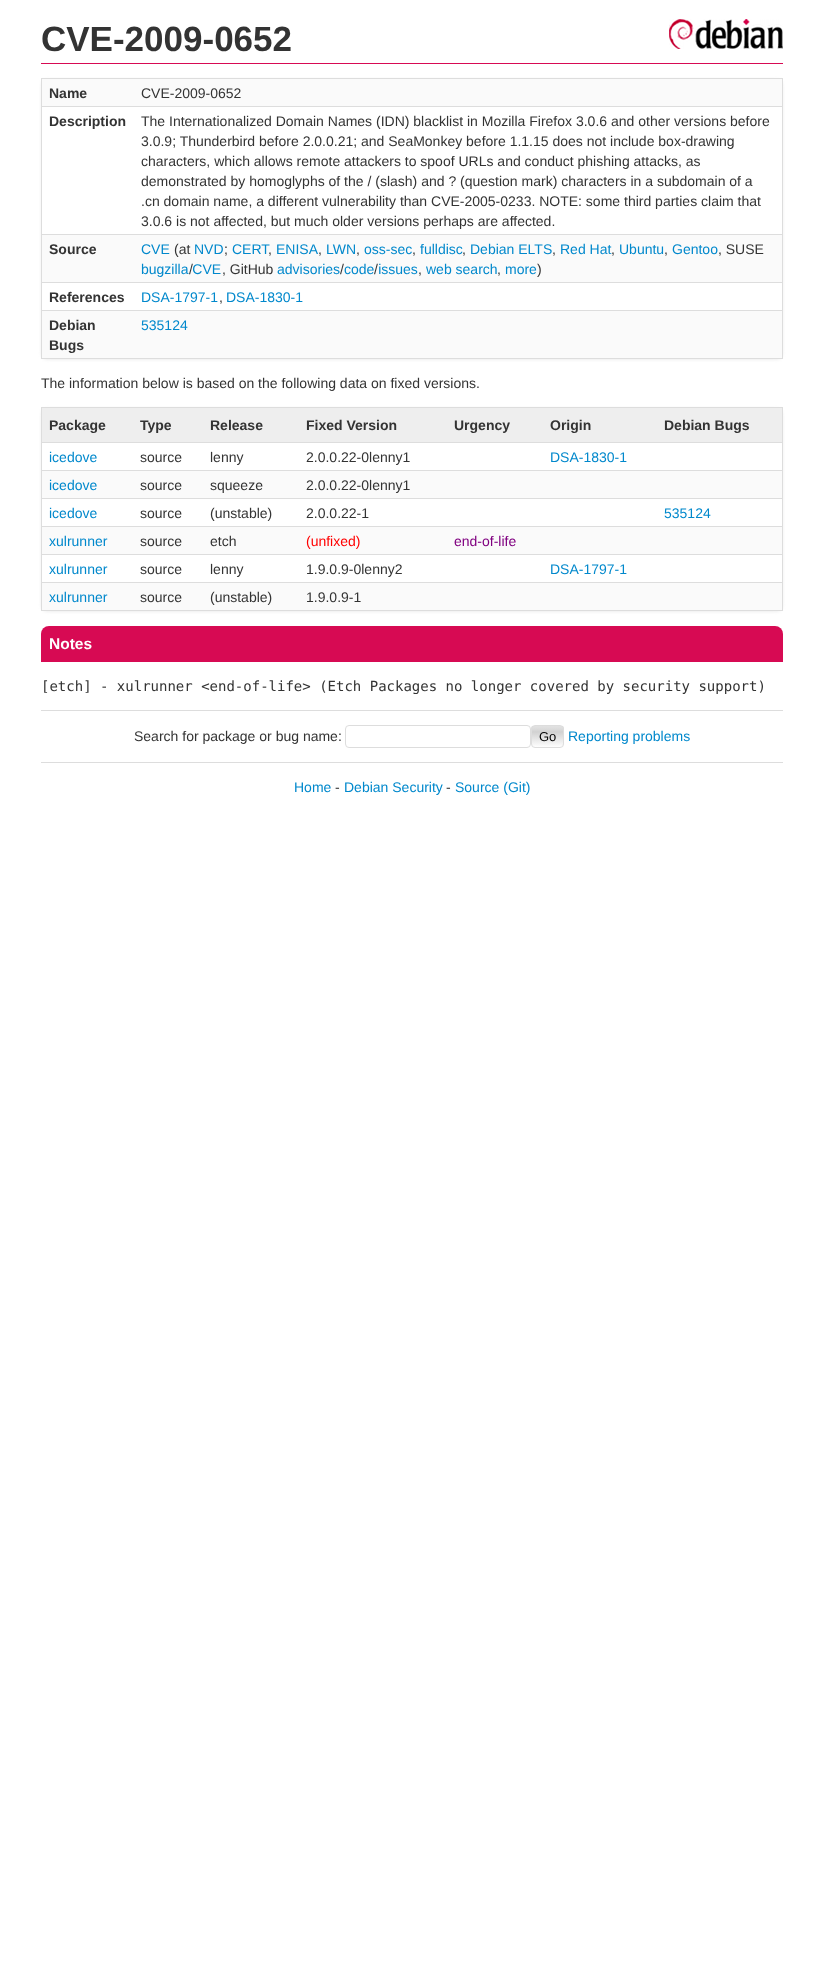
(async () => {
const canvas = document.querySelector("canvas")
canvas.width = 824
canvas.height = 1983
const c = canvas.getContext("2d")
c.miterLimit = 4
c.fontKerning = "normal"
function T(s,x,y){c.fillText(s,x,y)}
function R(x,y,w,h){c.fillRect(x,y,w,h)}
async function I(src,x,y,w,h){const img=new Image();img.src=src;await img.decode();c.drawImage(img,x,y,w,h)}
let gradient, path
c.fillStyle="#fff"
R(0,0,824,1983)
await I("1.png",669,19,114,30)
c.fillStyle="#d70a53"
R(41,63,742,1)
c.font="bold 35px Liberation Sans"
c.fillStyle="#333"
T("CVE-2009-0652",41,51)
c.save()
path = new Path2D("M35 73h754v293h-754zm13 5h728c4 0 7 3 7 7v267c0 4-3 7-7 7h-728c-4 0-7-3-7-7v-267c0-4 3-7 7-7z")
c.clip(path,"evenodd")
c.fillStyle="#eee"
c.filter="blur(1.5px)"
c.beginPath()
c.roundRect(41,79,742,281,7)
c.fill()
c.filter="none"
c.restore()
c.fillStyle="#ddd"
R(41,78,742,1)
R(782,78,1,281)
R(41,358,742,1)
R(41,78,1,281)
c.fillStyle="#fafafa"
R(42,79,740,27)
c.font="bold 14px Liberation Sans"
c.fillStyle="#333"
T("Name",49,98)
c.fillStyle="#ddd"
R(41,106,742,1)
c.font="14px Liberation Sans"
c.fillStyle="#333"
T("CVE-2009-0652",141,98)
c.font="bold 14px Liberation Sans"
T("Description",49,126)
c.fillStyle="#ddd"
R(41,234,742,1)
c.font="14px Liberation Sans"
c.fillStyle="#333"
T("The Internationalized Domain Names (IDN) blacklist in Mozilla Firefox 3.0.6 and other versions before",141,126)
T("3.0.9; Thunderbird before 2.0.0.21; and SeaMonkey before 1.1.15 does not include box-drawing",141,146)
T("characters, which allows remote attackers to spoof URLs and conduct phishing attacks, as",141,166)
T("demonstrated by homoglyphs of the / (slash) and ? (question mark) characters in a subdomain of a",141,186)
T(".cn domain name, a different vulnerability than CVE-2005-0233. NOTE: some third parties claim that",141,206)
T("3.0.6 is not affected, but much older versions perhaps are affected.",141,226)
c.fillStyle="#fafafa"
R(42,235,740,47)
c.font="bold 14px Liberation Sans"
c.fillStyle="#333"
T("Source",49,254)
c.fillStyle="#ddd"
R(41,282,742,1)
c.font="14px Liberation Sans"
c.fillStyle="#08c"
T("CVE",141,254)
c.fillStyle="#333"
T("(at",174,254)
c.fillStyle="#08c"
T("NVD",194,254)
c.fillStyle="#333"
T(";",224,254)
c.fillStyle="#08c"
T("CERT",232,254)
T("ENISA",276,254)
T("LWN",326,254)
T("oss-sec",364,254)
T("fulldisc",420,254)
T("Debian ELTS",470,254)
T("Red Hat",560,254)
T("Ubuntu",619,254)
T("Gentoo",672,254)
c.fillStyle="#333"
T(", SUSE",718,254)
T(",",268,254)
T(",",318,254)
T(",",356,254)
T(",",412,254)
T(",",462,254)
T(",",552,254)
T(",",611,254)
T(",",664,254)
c.fillStyle="#08c"
T("bugzilla CVE",141,274)
c.fillStyle="#333"
T("/",189,274)
T(", GitHub",222,274)
c.fillStyle="#08c"
T("advisories code issues",277,274)
c.fillStyle="#333"
T("/",340,274)
T("/",374,274)
T(",",418,274)
c.fillStyle="#08c"
T("web search",426,274)
c.fillStyle="#333"
T(",",497,274)
c.fillStyle="#08c"
T("more",505,274)
c.fillStyle="#333"
T(")",537,274)
c.font="bold 14px Liberation Sans"
T("References",49,302)
c.fillStyle="#ddd"
R(41,310,742,1)
c.font="14px Liberation Sans"
c.fillStyle="#08c"
T("DSA-1797-1",141,302)
c.fillStyle="#333"
T(",",219,302)
c.fillStyle="#08c"
T("DSA-1830-1",226,302)
c.fillStyle="#fafafa"
R(42,311,740,47)
c.font="bold 14px Liberation Sans"
c.fillStyle="#333"
T("Debian",49,330)
T("Bugs",49,350)
c.font="14px Liberation Sans"
c.fillStyle="#08c"
T("535124",141,330)
c.fillStyle="#333"
T("The information below is based on the following data on fixed versions.",41,388)
c.save()
path = new Path2D("M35 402h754v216h-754zm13 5h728c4 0 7 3 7 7v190c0 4-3 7-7 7h-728c-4 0-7-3-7-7v-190c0-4 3-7 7-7z")
c.clip(path,"evenodd")
c.fillStyle="#eee"
c.filter="blur(1.5px)"
c.beginPath()
c.roundRect(41,408,742,204,7)
c.fill()
c.filter="none"
c.restore()
c.fillStyle="#ddd"
R(41,407,742,1)
R(782,407,1,204)
R(41,610,742,1)
R(41,407,1,204)
c.fillStyle="#eee"
R(42,408,740,34)
c.font="bold 14px Liberation Sans"
c.fillStyle="#333"
T("Package",49,430)
T("Type",140,430)
T("Release",210,430)
T("Fixed Version",306,430)
T("Urgency",454,430)
T("Origin",550,430)
c.fillStyle="#ddd"
R(41,442,742,1)
c.fillStyle="#333"
T("Debian Bugs",664,430)
c.font="14px Liberation Sans"
c.fillStyle="#08c"
T("icedove",49,462)
c.fillStyle="#333"
T("source",140,462)
T("lenny",210,462)
T("2.0.0.22-0lenny1",306,462)
c.fillStyle="#08c"
T("DSA-1830-1",550,462)
c.fillStyle="#ddd"
R(41,470,742,1)
c.fillStyle="#fafafa"
R(42,471,740,27)
c.fillStyle="#08c"
T("icedove",49,490)
c.fillStyle="#333"
T("source",140,490)
T("squeeze",210,490)
T("2.0.0.22-0lenny1",306,490)
c.fillStyle="#ddd"
R(41,498,742,1)
c.fillStyle="#08c"
T("icedove",49,518)
c.fillStyle="#333"
T("source",140,518)
T("(unstable)",210,518)
T("2.0.0.22-1",306,518)
c.fillStyle="#ddd"
R(41,526,742,1)
c.fillStyle="#08c"
T("535124",664,518)
c.fillStyle="#fafafa"
R(42,527,740,27)
c.fillStyle="#08c"
T("xulrunner",49,546)
c.fillStyle="#333"
T("source",140,546)
T("etch",210,546)
c.fillStyle="#f00"
T("(unfixed)",306,546)
c.fillStyle="#800080"
T("end-of-life",454,546)
c.fillStyle="#ddd"
R(41,554,742,1)
c.fillStyle="#08c"
T("xulrunner",49,574)
c.fillStyle="#333"
T("source",140,574)
T("lenny",210,574)
T("1.9.0.9-0lenny2",306,574)
c.fillStyle="#08c"
T("DSA-1797-1",550,574)
c.fillStyle="#ddd"
R(41,582,742,1)
c.fillStyle="#fafafa"
R(42,583,740,27)
c.fillStyle="#08c"
T("xulrunner",49,602)
c.fillStyle="#333"
T("source",140,602)
T("(unstable)",210,602)
T("1.9.0.9-1",306,602)
c.fillStyle="#d70a53"
c.beginPath()
c.roundRect(41,626,742,36,[8,8,0,0])
c.fill()
c.font="bold 15.5px Liberation Sans"
c.fillStyle="#fff"
T("Notes",49,649)
c.font="14px DejaVu Sans Mono"
c.fillStyle="#333"
T("[etch] - xulrunner <end-of-life> (Etch Packages no longer covered by security support)",41,691)
c.fillStyle="#ddd"
R(41,710,742,1)
R(41,762,742,1)
c.font="14px Liberation Sans"
c.fillStyle="#333"
T("Search for package or bug name:",134,741)
c.beginPath()
c.roundRect(345.5,725.5,185,22,3.5)
c.strokeStyle="#ddd"
c.stroke()
c.save()
c.beginPath()
c.roundRect(531,725,33,23,4)
c.clip()
gradient = c.createLinearGradient(548,726,548,747)
gradient.addColorStop(0,"#e2e2e2")
gradient.addColorStop(.15,"#dbdbdb")
gradient.addColorStop(.28,"#d1d1d1")
gradient.addColorStop(1,"#fefefe")
c.fillStyle = gradient
R(531,726,33,21)
c.restore()
c.beginPath()
c.roundRect(531.5,725.5,32,22,3.5)
c.stroke()
c.font="13px Liberation Sans"
c.fillStyle="#000"
T("Go",539,741)
c.font="14px Liberation Sans"
c.fillStyle="#08c"
T("Reporting problems",568,741)
T("Home",294,792)
c.fillStyle="#333"
T("-",335,792)
c.fillStyle="#08c"
T("Debian Security",344,792)
c.fillStyle="#333"
T("-",446,792)
c.fillStyle="#08c"
T("Source (Git)",455,792)
})()
